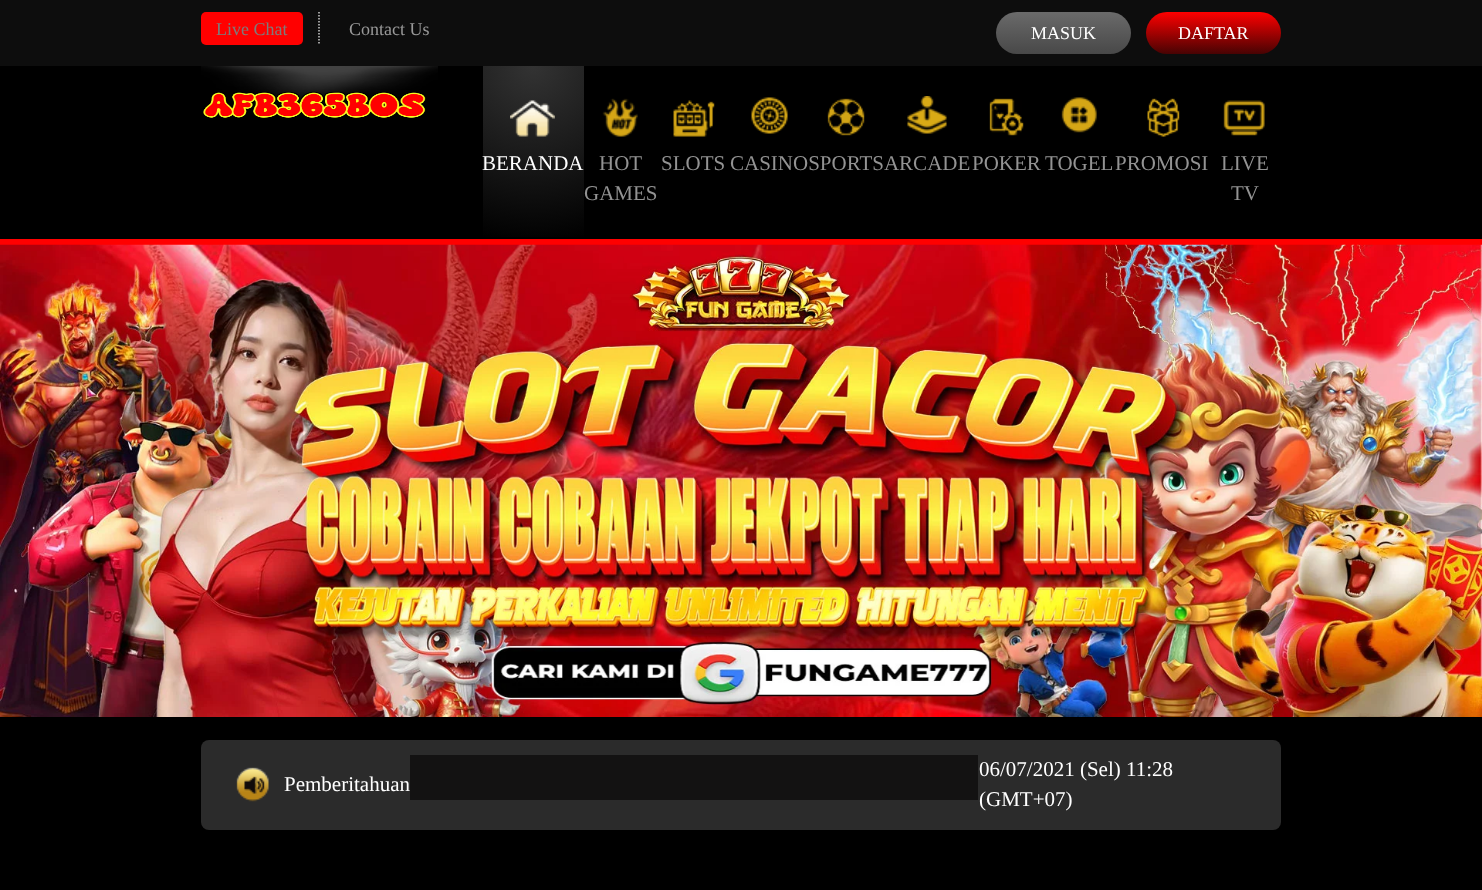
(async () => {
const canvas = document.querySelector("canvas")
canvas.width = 1482
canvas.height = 890
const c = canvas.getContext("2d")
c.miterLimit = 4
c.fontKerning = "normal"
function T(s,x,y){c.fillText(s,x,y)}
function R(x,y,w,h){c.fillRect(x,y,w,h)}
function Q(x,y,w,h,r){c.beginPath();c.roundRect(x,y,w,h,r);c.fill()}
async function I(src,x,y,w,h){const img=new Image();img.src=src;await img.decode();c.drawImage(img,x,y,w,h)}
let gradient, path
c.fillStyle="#0d0d0d"
R(0,0,1482,890)
c.fillStyle="#f00"
Q(201,12,102,33,5)
c.font="18px Liberation Serif"
c.fillStyle="#7c7c7c"
T("Live Chat",216,35)
path = new Path2D("M319 12v33")
c.strokeStyle="#ccc"
c.lineWidth=1.5
c.setLineDash([1.5,1.5])
c.stroke(path)
c.fillStyle="#999"
T("Contact Us",349,35)
gradient = c.createLinearGradient(1064,12,1064,54)
gradient.addColorStop(0,"#6a6a6a")
gradient.addColorStop(1,"#484848")
c.fillStyle = gradient
Q(996,12,135,42,21)
c.fillStyle="#fff"
T("MASUK",1031,39)
gradient = c.createLinearGradient(1214,12,1214,54)
gradient.addColorStop(0,"#f00")
gradient.addColorStop(1,"#470303")
c.fillStyle = gradient
Q(1146,12,135,42,21)
c.fillStyle="#fff"
T("DAFTAR",1178,39)
c.fillStyle="#000"
R(0,66,1482,173)
c.fillStyle="#f00"
R(0,239,1482,6)
await I("1.png",201,66,237,40)
await I("2.png",203,91,223,27)
await I("3.png",827,98,38,38)
await I("4.png",907,96,40,38)
gradient = c.createRadialGradient(533,66,0,533,66,180)
gradient.addColorStop(0,"#333")
gradient.addColorStop(1,"#000")
c.fillStyle = gradient
R(483,66,101,171)
await I("5.png",510,100,45,37)
c.font="21px Liberation Serif"
c.fillStyle="#fff"
T("BERANDA",482,170)
await I("6.png",602,98,36,39)
c.fillStyle="#939393"
T("HOT",599,170)
T("GAMES",584,200)
await I("7.png",673,100,42,37)
T("SLOTS",661,170)
await I("8.png",751,97,37,37)
T("CASINOSPORTSARCADE",730,170)
await I("9.png",989,98,35,38)
T("POKER",972,170)
await I("10.png",1061,97,36,36)
T("TOGEL",1045,170)
await I("11.png",1147,98,33,39)
T("PROMOSI",1115,170)
await I("12.png",1223,100,42,36)
T("LIVE",1221,170)
T("TV",1231,200)
await I("13.png",0,244,1482,473)
c.fillStyle="#000"
R(0,717,1482,173)
c.fillStyle="#2b2b2b"
Q(201,740,1080,90,8)
await I("14.png",236,767,33,35)
c.fillStyle="#fff"
T("Pemberitahuan",284,791)
c.fillStyle="#131212"
R(410,755,568,45)
c.fillStyle="#fff"
T("06/07/2021 (Sel) 11:28",979,776)
T("(GMT+07)",979,806)
})()
